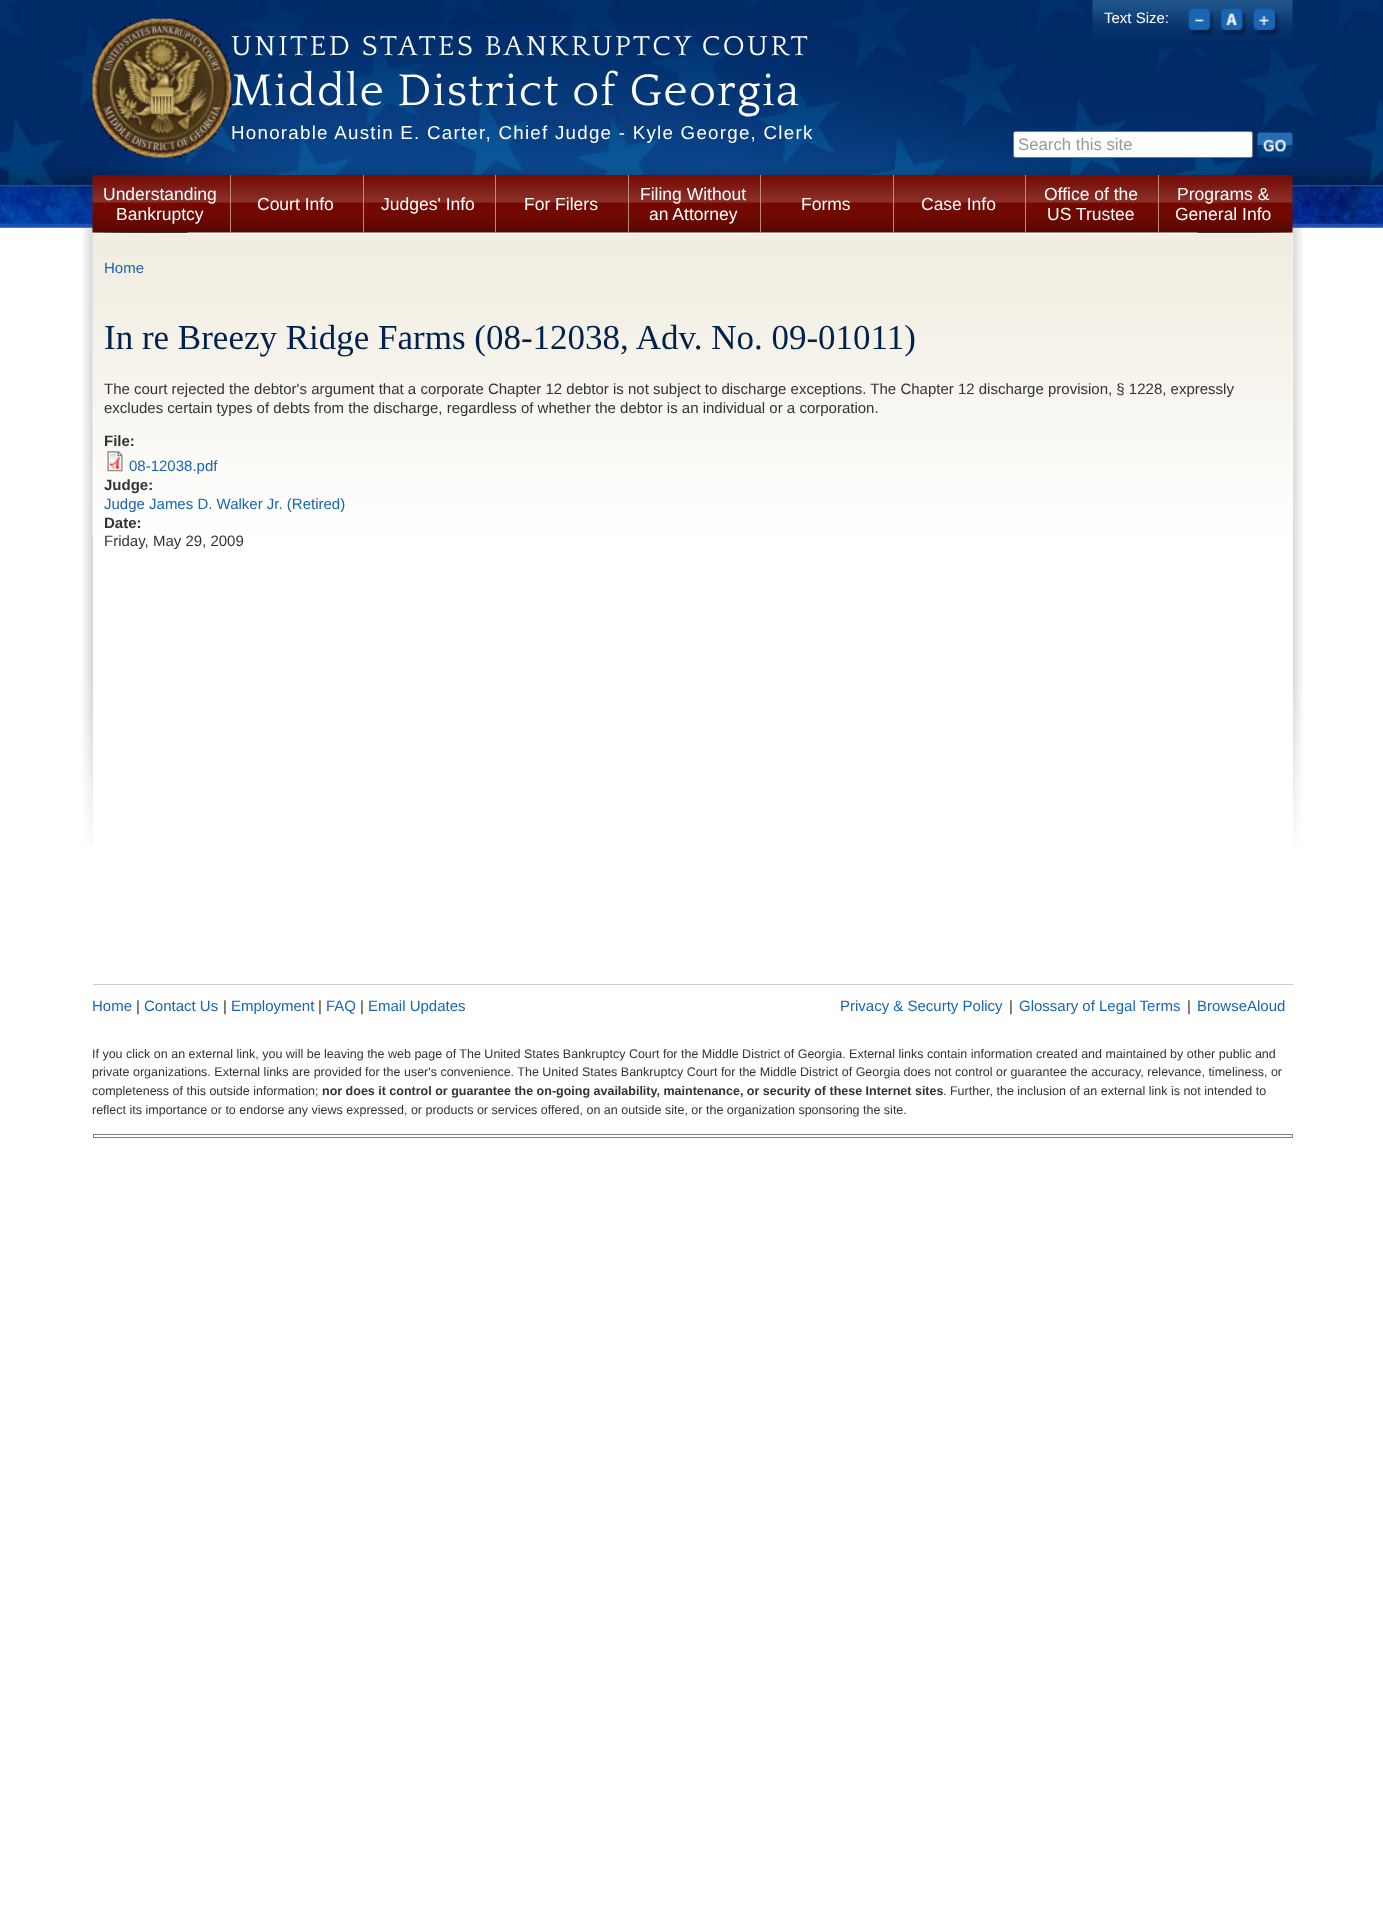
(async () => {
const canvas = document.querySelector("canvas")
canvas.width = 1383
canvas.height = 1930
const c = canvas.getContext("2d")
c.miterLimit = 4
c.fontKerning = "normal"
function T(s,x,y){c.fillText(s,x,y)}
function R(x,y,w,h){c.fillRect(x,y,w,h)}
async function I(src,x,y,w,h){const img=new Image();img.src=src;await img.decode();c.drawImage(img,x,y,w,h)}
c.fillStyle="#fff"
R(0,0,1383,1930)
await I("1.png",82,227,1221,619)
await I("2.png",0,227,1383,1)
await I("3.png",0,0,1383,228)
await I("4.png",1092,0,201,49)
c.font="15px Liberation Sans"
T("Text Size:",1104,23)
await I("5.png",1188,8,27,28)
await I("6.png",1221,8,26,28)
await I("7.png",1253,8,27,28)
c.beginPath()
c.roundRect(1013.5,131.5,239,26,2)
c.fill()
c.strokeStyle="#767676"
c.stroke()
c.font="16.75px Liberation Sans"
c.fillStyle="#999"
T("Search this site",1018,150)
await I("8.png",1257,132,36,26)
await I("9.png",92,175,1201,58)
c.fillStyle="#fff"
R(93,234,1200,612)
await I("11.png",92,233,1201,302)
R(93,233,1200,1)
c.fillStyle="#ba887f"
R(230,175,1,58)
c.font="17.5px Liberation Sans"
c.fillStyle="#fff"
T("Understanding",103,200)
T("Bankruptcy",116,220)
c.fillStyle="#ba887f"
R(363,175,1,58)
c.fillStyle="#fff"
T("Court Info",257,210)
c.fillStyle="#ba887f"
R(495,175,1,58)
c.fillStyle="#fff"
T("Judges' Info",381,210)
c.fillStyle="#ba887f"
R(628,175,1,58)
c.fillStyle="#fff"
T("For Filers",524,210)
c.fillStyle="#ba887f"
R(760,175,1,58)
c.fillStyle="#fff"
T("Filing Without",640,200)
T("an Attorney",649,220)
c.fillStyle="#ba887f"
R(893,175,1,58)
c.fillStyle="#fff"
T("Forms",801,210)
c.fillStyle="#ba887f"
R(1025,175,1,58)
c.fillStyle="#fff"
T("Case Info",921,210)
c.fillStyle="#ba887f"
R(1158,175,1,58)
c.fillStyle="#fff"
T("Office of the",1044,200)
T("US Trustee",1047,220)
T("Programs &",1177,200)
T("General Info",1175,220)
c.letterSpacing="2.5px"
c.font="28.75px Quattrocento"
T("UNITED STATES BANKRUPTCY COURT",231,55)
c.letterSpacing="1.25px"
c.font="46.25px Quattrocento"
T("Middle District of Georgia",231,105)
await I("10.png",92,18,140,140)
c.font="18.75px Liberation Sans"
T("Honorable Austin E. Carter, Chief Judge - Kyle George, Clerk",231,139)
c.letterSpacing="0px"
c.font="15px Liberation Sans"
c.fillStyle="#1765b3"
T("Home",104,273)
c.font="35px Liberation Serif"
c.fillStyle="#00214d"
T("In re Breezy Ridge Farms (08-12038, Adv. No. 09-01011)",104,349)
c.font="15px Liberation Sans"
c.fillStyle="#333"
T("The court rejected the debtor's argument that a corporate Chapter 12 debtor is not subject to discharge exceptions. The Chapter 12 discharge provision, § 1228, expressly",104,394)
T("excludes certain types of debts from the discharge, regardless of whether the debtor is an individual or a corporation.",104,413)
c.font="bold 15px Liberation Sans"
T("File:",104,446)
await I("12.png",107,451,16,21)
c.font="15px Liberation Sans"
c.fillStyle="#1765b3"
T("08-12038.pdf",129,471)
c.font="bold 15px Liberation Sans"
c.fillStyle="#333"
T("Judge:",104,490)
c.font="15px Liberation Sans"
c.fillStyle="#1765b3"
T("Judge James D. Walker Jr. (Retired)",104,509)
c.font="bold 15px Liberation Sans"
c.fillStyle="#333"
T("Date:",104,528)
c.font="15px Liberation Sans"
T("Friday, May 29, 2009",104,546)
c.fillStyle="#ccc"
R(93,984,1200,1)
c.fillStyle="#1765b3"
T("Home",92,1011)
c.fillStyle="#333"
T("|",136,1011)
c.fillStyle="#1765b3"
T("Contact Us",144,1011)
c.fillStyle="#333"
T("|",223,1011)
c.fillStyle="#1765b3"
T("Employment",231,1011)
c.fillStyle="#333"
T("|",318,1011)
c.fillStyle="#1765b3"
T("FAQ",326,1011)
c.fillStyle="#333"
T("|",360,1011)
c.fillStyle="#1765b3"
T("Email Updates",368,1011)
T("Privacy & Securty Policy",840,1011)
c.fillStyle="#333"
T("|",1009,1011)
c.fillStyle="#1765b3"
T("Glossary of Legal Terms",1019,1011)
c.fillStyle="#333"
T("|",1187,1011)
c.fillStyle="#1765b3"
T("BrowseAloud",1197,1011)
c.font="12.5px Liberation Sans"
c.fillStyle="#333"
T("If you click on an external link, you will be leaving the web page of The United States Bankruptcy Court for the Middle District of Georgia. External links contain information created and maintained by other public and",92,1058)
T("private organizations. External links are provided for the user's convenience. The United States Bankruptcy Court for the Middle District of Georgia does not control or guarantee the accuracy, relevance, timeliness, or",92,1076)
T("completeness of this outside information;",92,1095)
c.font="bold 12.5px Liberation Sans"
T("nor does it control or guarantee the on-going availability, maintenance, or security of these Internet sites",322,1095)
c.font="12.5px Liberation Sans"
T(". Further, the inclusion of an external link is not intended to",943,1095)
T("reflect its importance or to endorse any views expressed, or products or services offered, on an outside site, or the organization sponsoring the site.",92,1114)
c.strokeStyle="#808080"
c.strokeRect(93.5,1134.5,1199,3)
})()
